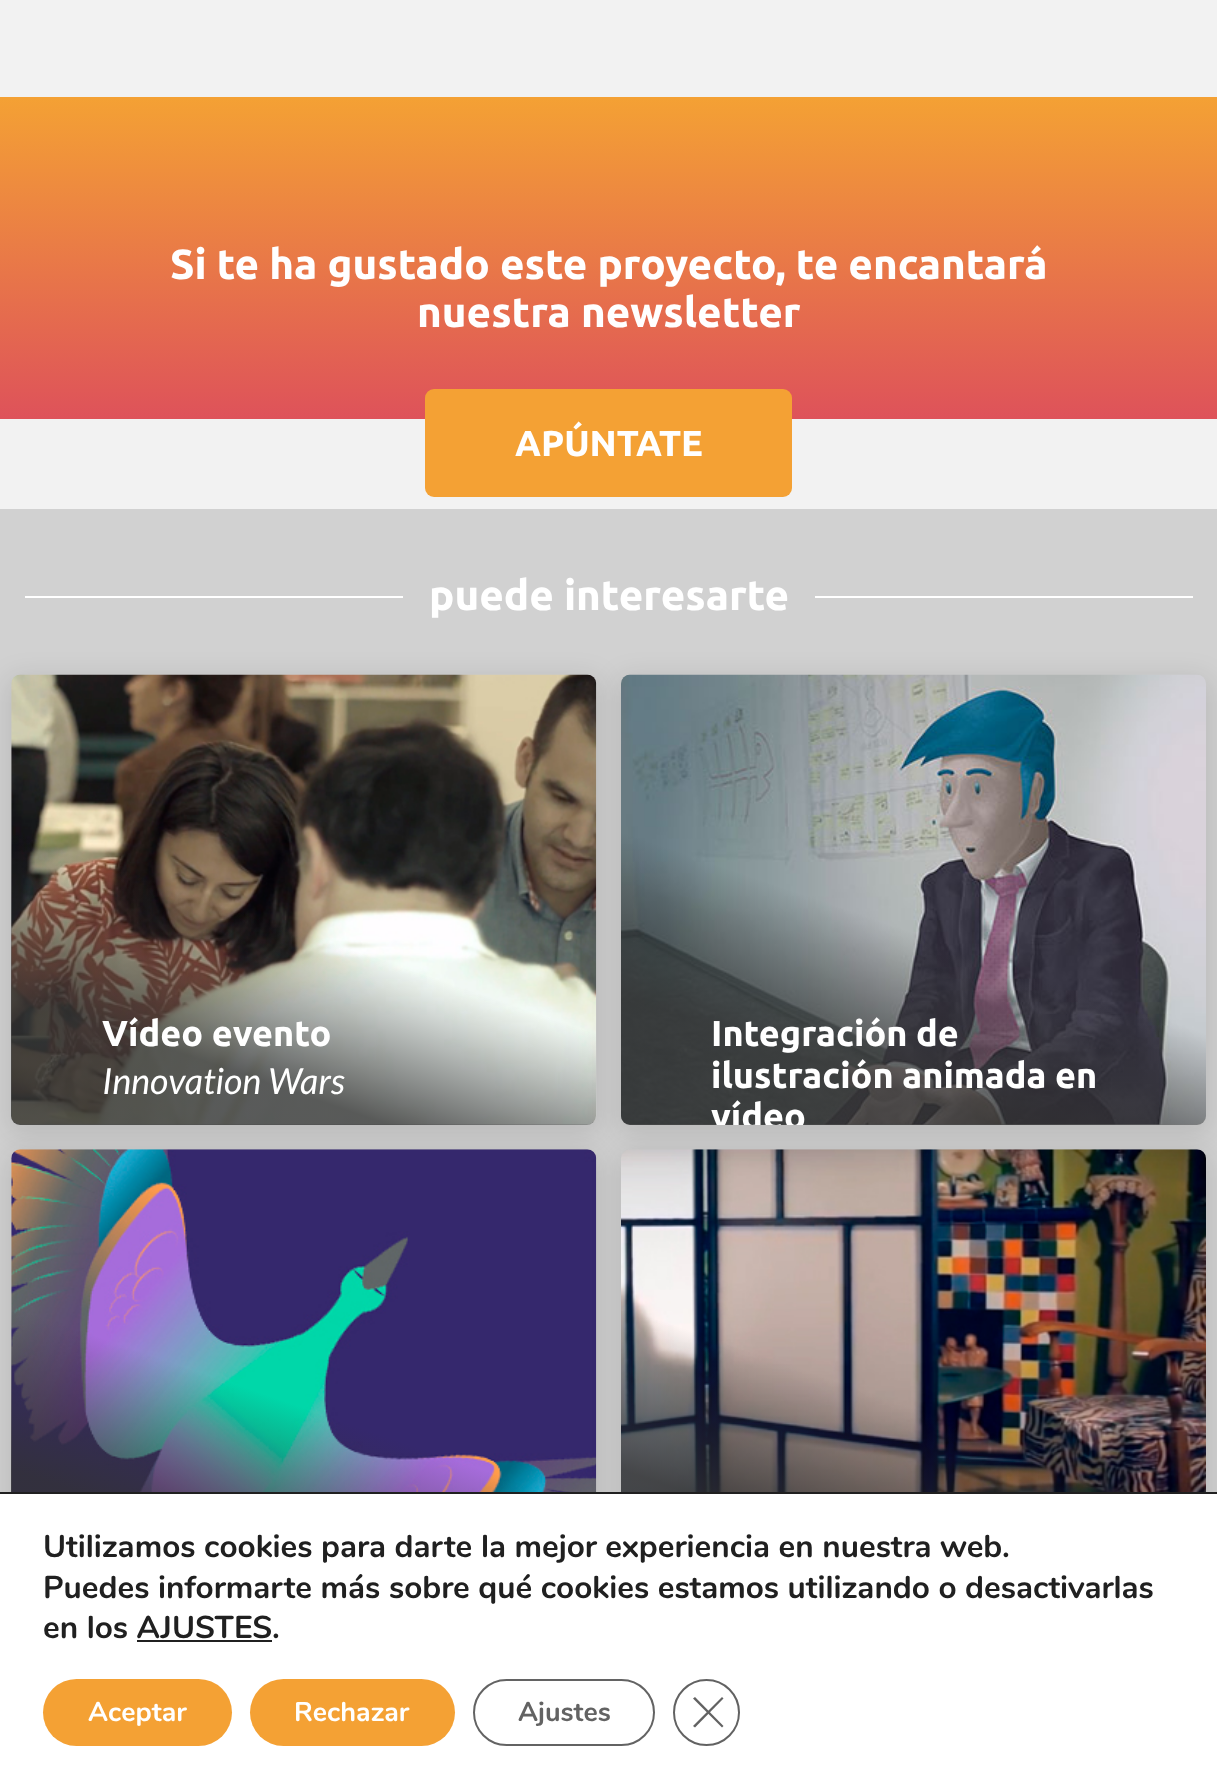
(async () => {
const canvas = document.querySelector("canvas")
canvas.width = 1217
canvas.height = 1785
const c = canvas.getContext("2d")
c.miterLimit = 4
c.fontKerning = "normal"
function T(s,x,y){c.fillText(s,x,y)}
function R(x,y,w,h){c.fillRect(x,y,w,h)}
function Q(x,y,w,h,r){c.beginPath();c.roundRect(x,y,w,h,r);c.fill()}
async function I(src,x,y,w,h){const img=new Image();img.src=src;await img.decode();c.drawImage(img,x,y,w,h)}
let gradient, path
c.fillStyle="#f2f2f2"
R(0,0,1217,1785)
gradient = c.createLinearGradient(609,97,609,419)
gradient.addColorStop(0,"#f4a134")
gradient.addColorStop(1,"#de525a")
c.fillStyle = gradient
R(0,97,1217,322)
c.font="bold 42.1px Ubuntu"
c.fillStyle="#fff"
T("Si te ha gustado este proyecto, te encantará",170,279)
T("nuestra newsletter",417,327)
c.fillStyle="#f4a134"
Q(425,389,367,108,9)
c.font="bold 36px Ubuntu"
c.fillStyle="#fff"
T("APÚNTATE",515,456)
c.fillStyle="#d1d1d1"
R(0,509,1217,983)
c.fillStyle="#fff"
R(25,596,378,2)
c.font="bold 42.1px Ubuntu"
T("puede interesarte",429,610)
R(815,596,378,2)
c.fillStyle="#0000001a"
c.filter="blur(13.5px)"
c.beginPath()
c.roundRect(7,677,594,459,14)
c.fill()
c.filter="none"
await I("1.png",11,674,586,451)
gradient = c.createLinearGradient(203,1191,404,609)
gradient.addColorStop(.2,"#323232cc")
gradient.addColorStop(.45,"#32323200")
c.fillStyle = gradient
Q(11,675,585,450,9)
c.font="bold 36px Ubuntu"
c.fillStyle="#fff"
T("Vídeo evento",102,1046)
c.font="italic 36px Lato"
T("Innovation Wars",102,1094)
c.fillStyle="#0000001a"
c.filter="blur(13.5px)"
c.beginPath()
c.roundRect(617,677,594,459,14)
c.fill()
c.filter="none"
await I("2.png",621,674,585,451)
gradient = c.createLinearGradient(813,1191,1014,609)
gradient.addColorStop(.2,"#323232cc")
gradient.addColorStop(.45,"#32323200")
c.fillStyle = gradient
Q(621,675,585,450,9)
c.font="bold 36px Ubuntu"
c.fillStyle="#fff"
T("Integración de",711,1046)
T("ilustración animada en",711,1088)
c.save()
c.beginPath()
c.roundRect(621,675,585,450,9)
c.clip()
T("vídeo",711,1129)
c.restore()
c.fillStyle="#0000001a"
c.filter="blur(13.5px)"
c.beginPath()
c.roundRect(7,1152,594,459,14)
c.fill()
c.filter="none"
await I("3.png",11,1149,586,343)
gradient = c.createLinearGradient(203,1666,404,1084)
gradient.addColorStop(.2,"#323232cc")
gradient.addColorStop(.45,"#32323200")
c.fillStyle = gradient
R(11,1312,523,180)
c.fillStyle="#0000001a"
c.filter="blur(13.5px)"
c.beginPath()
c.roundRect(617,1152,594,459,14)
c.fill()
c.filter="none"
await I("4.png",621,1149,585,343)
gradient = c.createLinearGradient(813,1666,1014,1084)
gradient.addColorStop(.2,"#323232cc")
gradient.addColorStop(.45,"#32323200")
c.fillStyle = gradient
R(621,1311,482,181)
c.fillStyle="#fff"
R(0,1494,1217,291)
c.fillStyle="#202020"
R(0,1492,1217,2)
c.font="bold 31.5px Nunito"
T("Utilizamos cookies para darte la mejor experiencia en nuestra web.",43,1557)
T("Puedes informarte más sobre qué cookies estamos utilizando o desactivarlas",43,1598)
T("en los AJUSTES",43,1638)
T(".",272,1638)
R(137,1640,135,2)
c.fillStyle="#f4a134"
Q(43,1679,189,67,33.5)
c.font="bold 27px Nunito"
c.fillStyle="#fff"
T("Aceptar",88,1721)
c.fillStyle="#f4a134"
Q(250,1679,205,67,33.5)
c.fillStyle="#fff"
T("Rechazar",294,1721)
c.beginPath()
c.roundRect(474,1680,180,65,32.5)
c.strokeStyle="#636363"
c.lineWidth=2
c.stroke()
c.fillStyle="#636363"
T("Ajustes",518,1721)
c.beginPath()
c.arc(706.5,1712.5,32.5,0,7)
c.strokeStyle="#626262"
c.stroke()
c.fillStyle="#626262"
path = new Path2D("M722 1697l1.5 1.5l-28.5 29l-2-1.5z")
c.fill(path)
path = new Path2D("M693 1698.5l2-1.5l28.5 29l-1.5 1.5z")
c.fill(path)
})()
